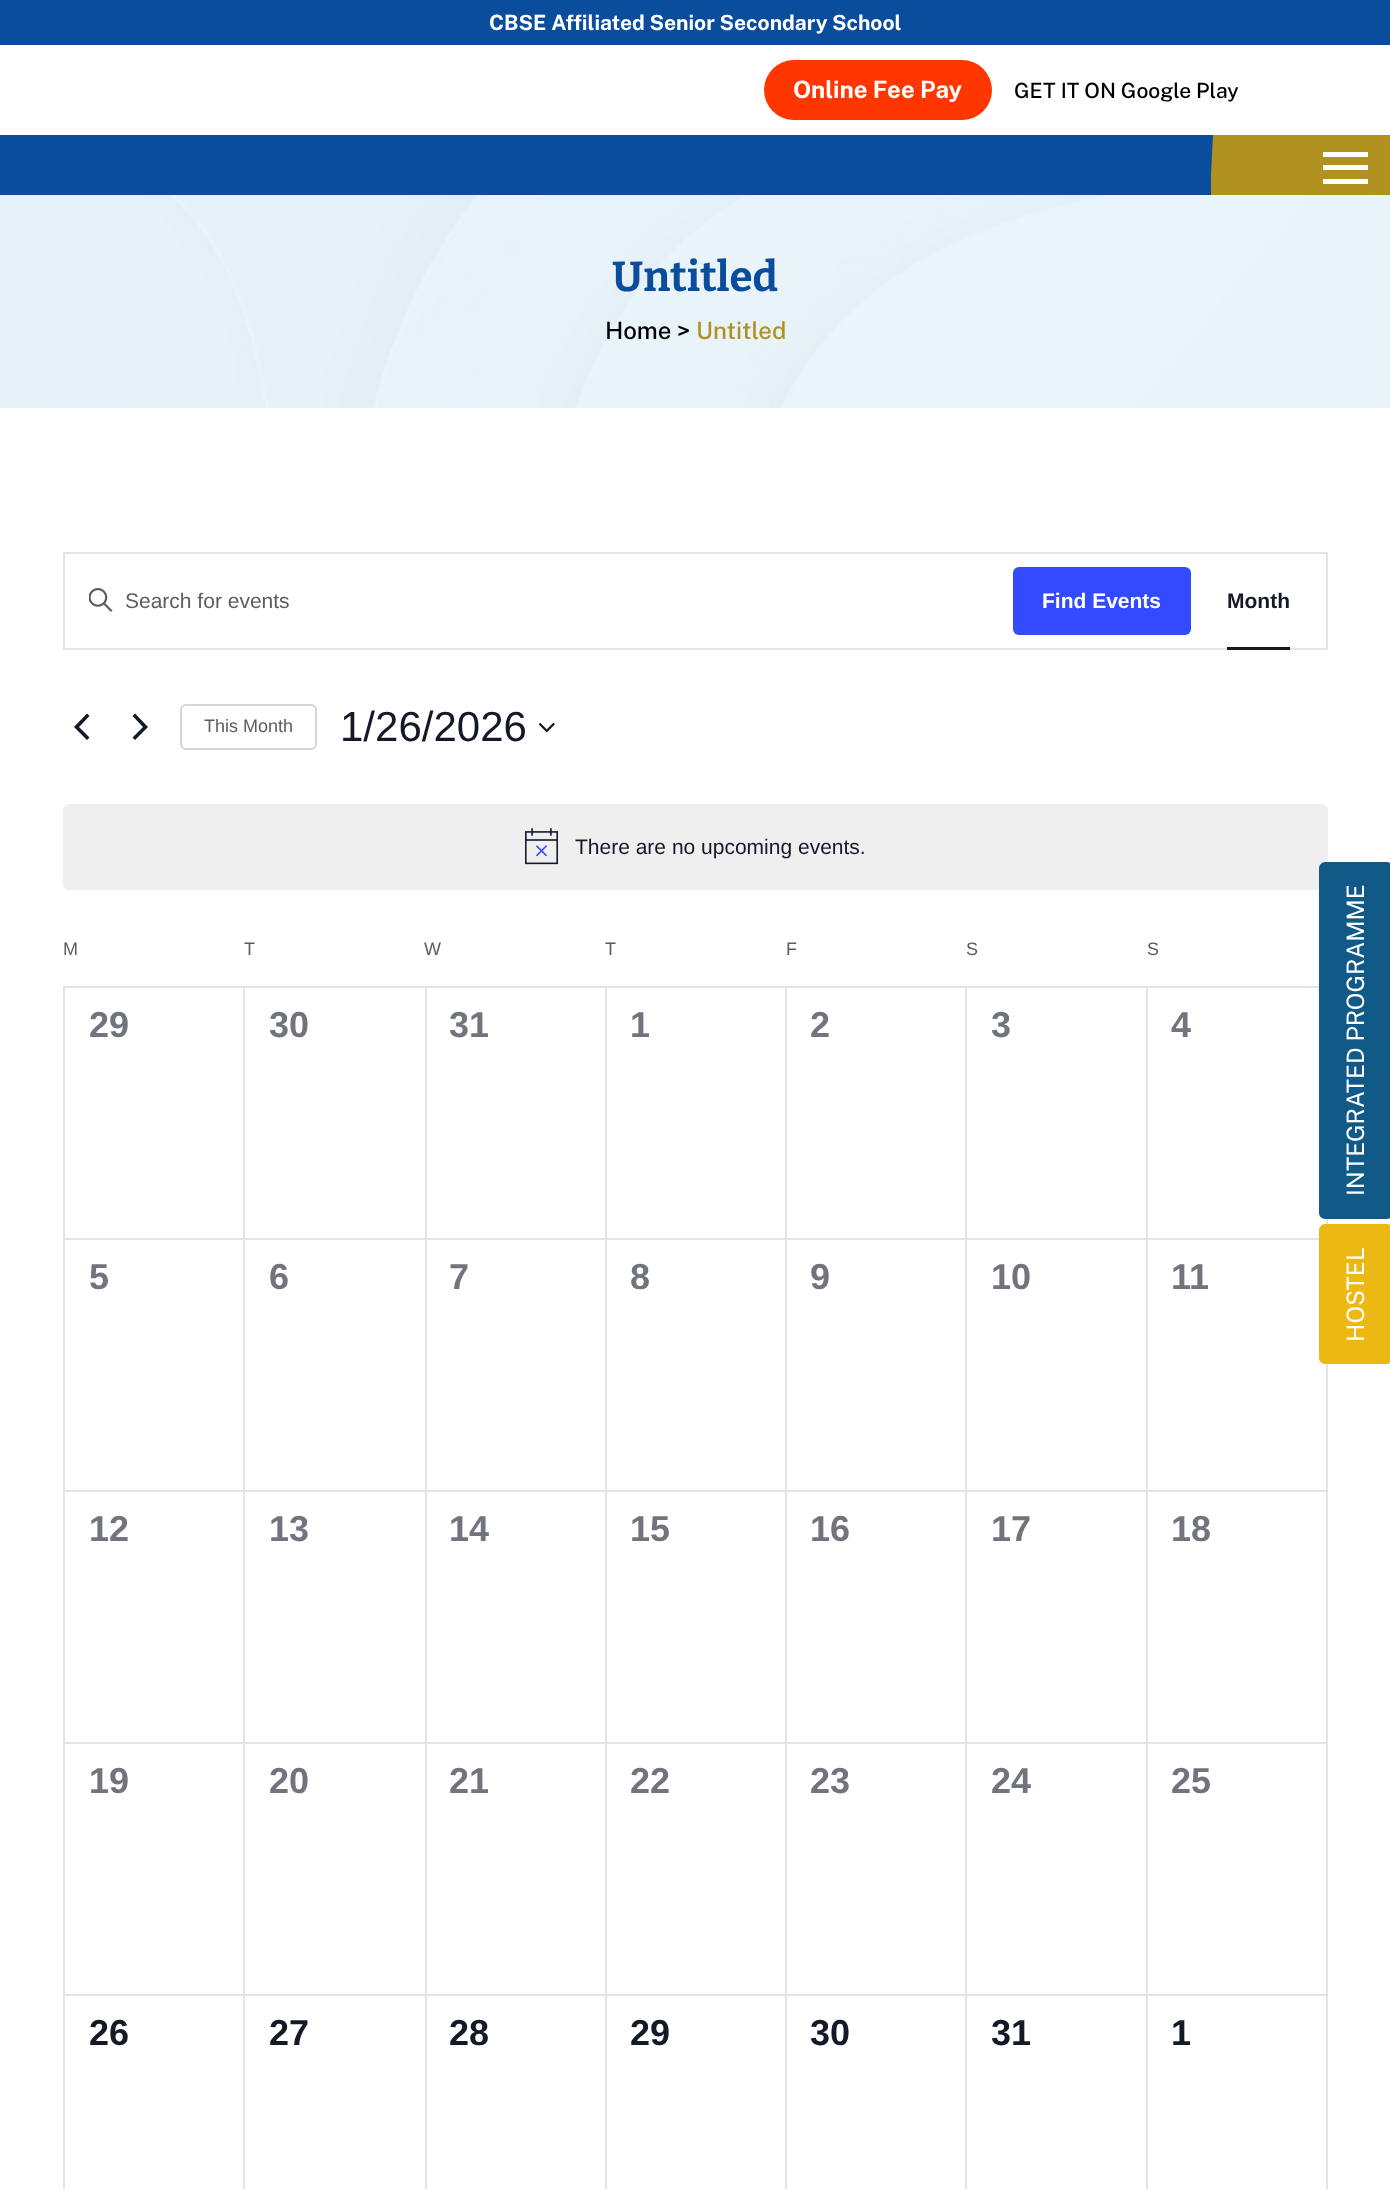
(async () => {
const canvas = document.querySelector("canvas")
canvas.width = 1390
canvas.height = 2189
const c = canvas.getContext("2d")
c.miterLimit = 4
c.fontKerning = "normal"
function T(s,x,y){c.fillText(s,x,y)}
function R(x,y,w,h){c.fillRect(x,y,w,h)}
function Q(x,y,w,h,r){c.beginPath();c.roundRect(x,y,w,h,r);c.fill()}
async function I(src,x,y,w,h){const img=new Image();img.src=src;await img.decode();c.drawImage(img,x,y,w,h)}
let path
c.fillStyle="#fff"
R(0,0,1390,2189)
c.fillStyle="#094d9c"
R(0,0,1390,45)
c.font="bold 21px Public Sans"
c.fillStyle="#fff"
T("CBSE Affiliated Senior Secondary School",489,30)
c.fillStyle="#ff3600"
Q(764,60,228,60,30)
c.font="bold 24px Public Sans"
c.fillStyle="#fff"
T("Online Fee Pay",793,98)
c.font="500 21px Public Sans"
c.fillStyle="#000"
T("GET IT ON Google Play",1014,98)
c.fillStyle="#094d9c"
R(0,135,1213,60)
c.fillStyle="#b19221"
path = new Path2D("M1213 135l-2 40v20h179v-60z")
c.fill(path)
c.fillStyle="#fff"
R(1323,152,45,5)
R(1323,165,45,5)
R(1323,179,45,5)
await I("1.png",0,195,1390,213)
c.font="bold 42px Bitter"
c.fillStyle="#094d9c"
T("Untitled",612,291)
c.font="500 24px Public Sans"
c.fillStyle="#000"
T("Home >",605,339)
c.fillStyle="#b19221"
T("Untitled",696,339)
c.strokeStyle="#e4e4e4"
c.lineWidth=2
c.strokeRect(64,553,1263,96)
await I("2.png",89,588,24,24)
c.font="21px Liberation Sans"
c.fillStyle="#5d5d5d"
T("Search for events",125,608)
c.fillStyle="#334aff"
Q(1013,567,178,68,6)
c.font="bold 21px Liberation Sans"
c.fillStyle="#fff"
T("Find Events",1042,608)
c.fillStyle="#141827"
T("Month",1227,608)
R(1227,647,63,3)
path = new Path2D("M89.5 737.5l-2.5 2.5l-13-13l13-13.5l2.5 2.5l-10.5 11z")
c.fill(path)
path = new Path2D("M132.5 716l2.5-2.5l13 13.5l-13 13l-2.5-2.5l10.5-10.5z")
c.fill(path)
c.beginPath()
c.roundRect(181,705,135,44,5)
c.strokeStyle="#d5d5d5"
c.stroke()
c.font="18px Liberation Sans"
c.fillStyle="#5d5d5d"
T("This Month",204,732)
c.font="42px Liberation Sans"
c.fillStyle="#141827"
T("1/26/2026",340,741)
await I("3.png",539,722,16,11)
c.fillStyle="#efeff0"
Q(63,804,1265,86,6)
await I("4.png",525,828,33,37)
c.font="21px Liberation Sans"
c.fillStyle="#141827"
T("There are no upcoming events.",575,854)
c.font="18px Liberation Sans"
c.fillStyle="#5d5d5d"
T("M",63,955)
T("T",244,955)
T("W",424,955)
T("T",605,955)
T("F",786,955)
T("S",966,955)
T("S",1147,955)
c.fillStyle="#e4e4e4"
R(63,987,2,1202)
R(63,986,1256,2)
R(243,987,2,252)
R(65,1238,180,2)
c.font="bold 36px Liberation Sans"
c.fillStyle="#72747d"
T("29",89,1037)
c.fillStyle="#e4e4e4"
R(425,987,2,252)
R(245,1238,181,2)
c.fillStyle="#72747d"
T("30",269,1037)
c.fillStyle="#e4e4e4"
R(605,987,2,252)
R(426,1238,180,2)
c.fillStyle="#72747d"
T("31",449,1037)
c.fillStyle="#e4e4e4"
R(785,987,2,252)
R(606,1238,180,2)
c.fillStyle="#72747d"
T("1",630,1037)
c.fillStyle="#e4e4e4"
R(965,987,2,252)
R(786,1238,180,2)
c.fillStyle="#72747d"
T("2",810,1037)
c.fillStyle="#e4e4e4"
R(1146,987,2,252)
R(966,1238,353,2)
c.fillStyle="#72747d"
T("3",991,1037)
c.fillStyle="#e4e4e4"
R(1326,1219,2,5)
c.fillStyle="#72747d"
T("4",1171,1037)
c.fillStyle="#e4e4e4"
R(243,1239,2,252)
R(65,1490,180,2)
c.fillStyle="#72747d"
T("5",89,1289)
c.fillStyle="#e4e4e4"
R(425,1239,2,252)
R(245,1490,181,2)
c.fillStyle="#72747d"
T("6",269,1289)
c.fillStyle="#e4e4e4"
R(605,1239,2,252)
R(426,1490,180,2)
c.fillStyle="#72747d"
T("7",449,1289)
c.fillStyle="#e4e4e4"
R(785,1239,2,252)
R(606,1490,180,2)
c.fillStyle="#72747d"
T("8",630,1289)
c.fillStyle="#e4e4e4"
R(965,1239,2,252)
R(786,1490,180,2)
c.fillStyle="#72747d"
T("9",810,1289)
c.fillStyle="#e4e4e4"
R(1146,1239,2,252)
R(966,1490,182,2)
c.fillStyle="#72747d"
T("10",991,1289)
c.fillStyle="#e4e4e4"
R(1326,1364,2,127)
R(1148,1490,180,2)
c.fillStyle="#72747d"
T("11",1171,1289)
c.fillStyle="#e4e4e4"
R(243,1491,2,252)
R(65,1742,180,2)
c.fillStyle="#72747d"
T("12",89,1541)
c.fillStyle="#e4e4e4"
R(425,1491,2,252)
R(245,1742,181,2)
c.fillStyle="#72747d"
T("13",269,1541)
c.fillStyle="#e4e4e4"
R(605,1491,2,252)
R(426,1742,180,2)
c.fillStyle="#72747d"
T("14",449,1541)
c.fillStyle="#e4e4e4"
R(785,1491,2,252)
R(606,1742,180,2)
c.fillStyle="#72747d"
T("15",630,1541)
c.fillStyle="#e4e4e4"
R(965,1491,2,252)
R(786,1742,180,2)
c.fillStyle="#72747d"
T("16",810,1541)
c.fillStyle="#e4e4e4"
R(1146,1491,2,252)
R(966,1742,182,2)
c.fillStyle="#72747d"
T("17",991,1541)
c.fillStyle="#e4e4e4"
R(1326,1491,2,252)
R(1148,1742,180,2)
c.fillStyle="#72747d"
T("18",1171,1541)
c.fillStyle="#e4e4e4"
R(243,1743,2,252)
R(65,1994,180,2)
c.fillStyle="#72747d"
T("19",89,1793)
c.fillStyle="#e4e4e4"
R(425,1743,2,252)
R(245,1994,181,2)
c.fillStyle="#72747d"
T("20",269,1793)
c.fillStyle="#e4e4e4"
R(605,1743,2,252)
R(426,1994,180,2)
c.fillStyle="#72747d"
T("21",449,1793)
c.fillStyle="#e4e4e4"
R(785,1743,2,252)
R(606,1994,180,2)
c.fillStyle="#72747d"
T("22",630,1793)
c.fillStyle="#e4e4e4"
R(965,1743,2,252)
R(786,1994,180,2)
c.fillStyle="#72747d"
T("23",810,1793)
c.fillStyle="#e4e4e4"
R(1146,1743,2,252)
R(966,1994,182,2)
c.fillStyle="#72747d"
T("24",991,1793)
c.fillStyle="#e4e4e4"
R(1326,1743,2,252)
R(1148,1994,180,2)
c.fillStyle="#72747d"
T("25",1171,1793)
c.fillStyle="#e4e4e4"
R(243,1995,2,194)
c.fillStyle="#141827"
T("26",89,2045)
c.fillStyle="#e4e4e4"
R(425,1995,2,194)
c.fillStyle="#141827"
T("27",269,2045)
c.fillStyle="#e4e4e4"
R(605,1995,2,194)
c.fillStyle="#141827"
T("28",449,2045)
c.fillStyle="#e4e4e4"
R(785,1995,2,194)
c.fillStyle="#141827"
T("29",630,2045)
c.fillStyle="#e4e4e4"
R(965,1995,2,194)
c.fillStyle="#141827"
T("30",810,2045)
c.fillStyle="#e4e4e4"
R(1146,1995,2,194)
c.fillStyle="#141827"
T("31",991,2045)
c.fillStyle="#e4e4e4"
R(1326,1995,2,194)
c.fillStyle="#141827"
T("1",1171,2045)
c.fillStyle="#115a87"
path = new Path2D("M1319 1213v-345c0-3 3-6 6-6h62c3 0 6 3 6 6v345c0 3-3 6-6 6h-62c-3 0-6-3-6-6z")
c.fill(path)
c.font="24px Public Sans"
c.fillStyle="#fff"
c.save()
c.translate(1364,1196)
c.rotate(-90 * Math.PI / 180)
c.fillText("INTEGRATED PROGRAMME",0,0)
c.restore()
c.fillStyle="#ecb813"
path = new Path2D("M1319 1358v-128c0-3 3-6 6-6h62c3 0 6 3 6 6v128c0 3-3 6-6 6h-62c-3 0-6-3-6-6z")
c.fill(path)
c.fillStyle="#fff"
c.save()
c.translate(1364,1342)
c.rotate(-90 * Math.PI / 180)
c.fillText("HOSTEL",0,0)
c.restore()
})()
